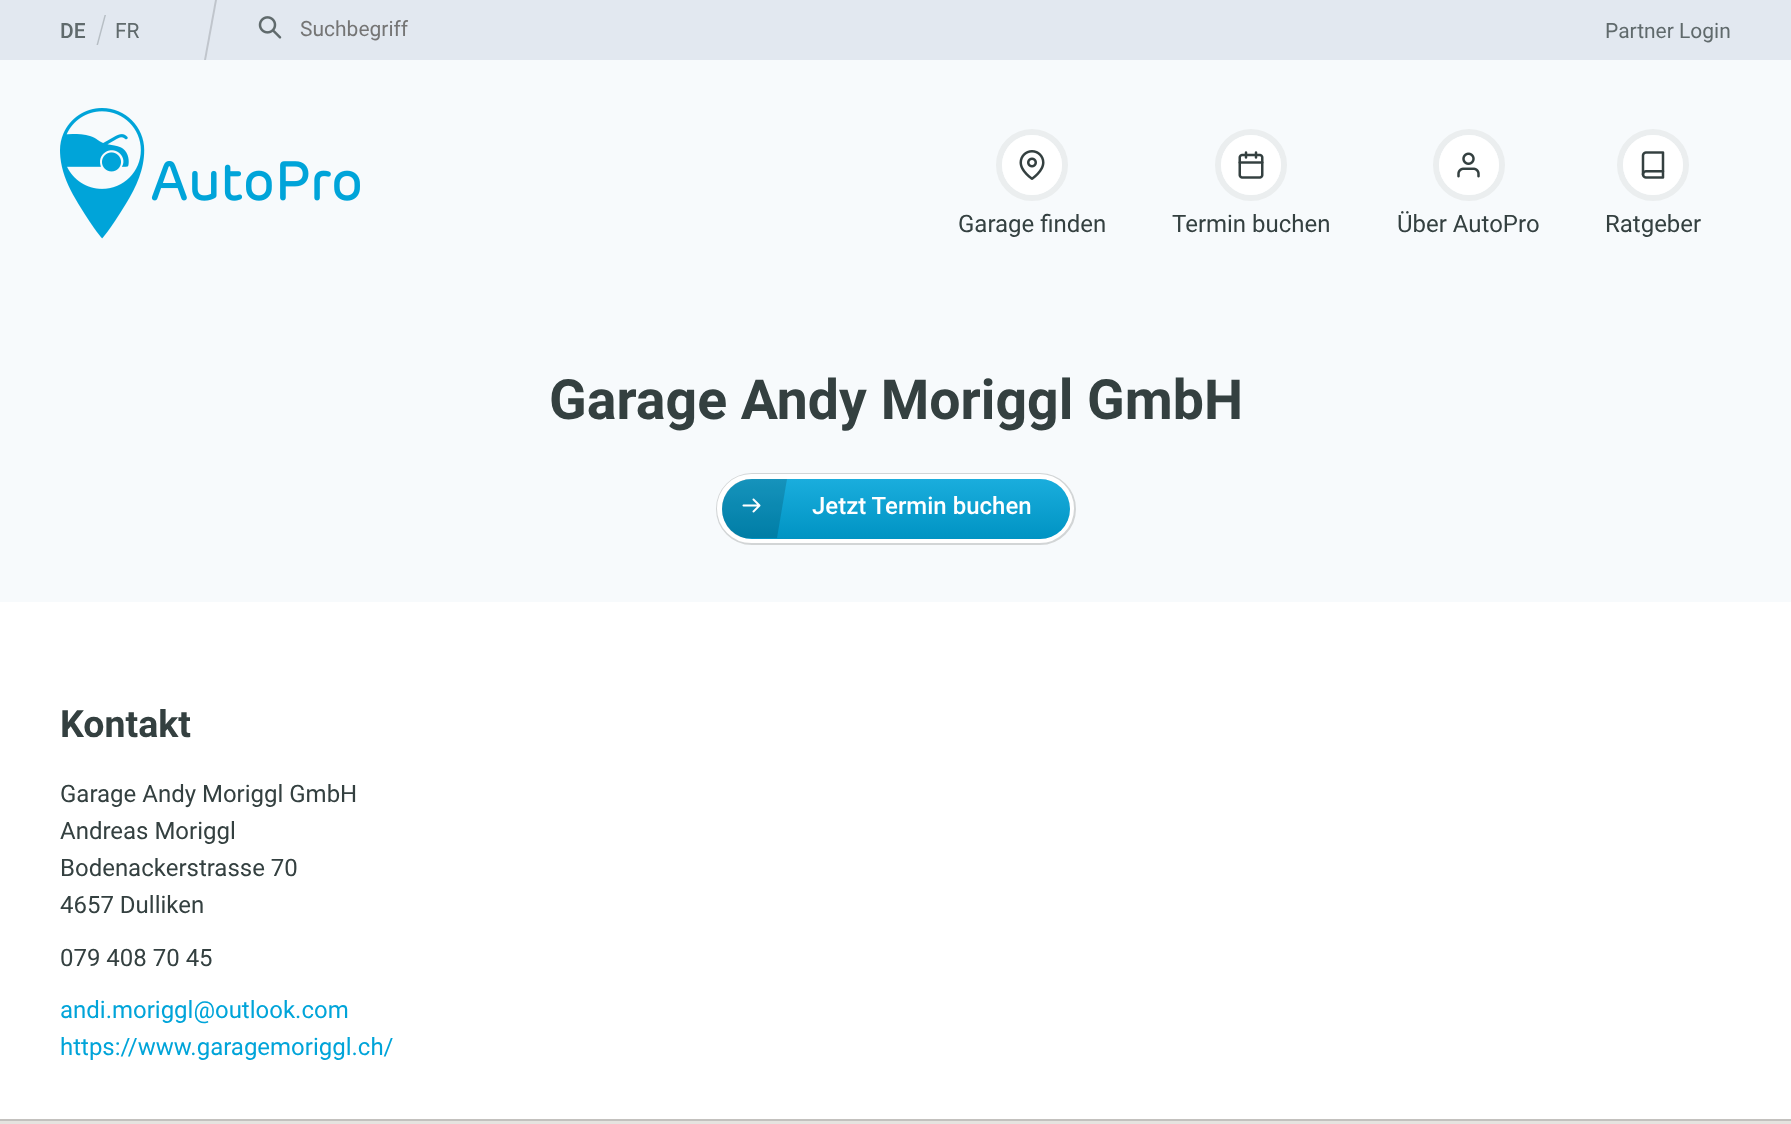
(async () => {
const canvas = document.querySelector("canvas")
canvas.width = 1791
canvas.height = 1124
const c = canvas.getContext("2d")
c.miterLimit = 4
c.fontKerning = "normal"
function T(s,x,y){c.fillText(s,x,y)}
function R(x,y,w,h){c.fillRect(x,y,w,h)}
function Q(x,y,w,h,r){c.beginPath();c.roundRect(x,y,w,h,r);c.fill()}
async function I(src,x,y,w,h){const img=new Image();img.src=src;await img.decode();c.drawImage(img,x,y,w,h)}
let gradient, path
c.fillStyle="#fff"
R(0,0,1791,1124)
c.fillStyle="#e2e8f0"
R(0,0,1791,60)
c.font="500 21px Roboto"
c.fillStyle="#606a6c"
T("DE",60,38)
c.fillStyle="#b7bec4"
path = new Path2D("M104.5 15h1.5l-8 30h-1.5z")
c.fill(path)
c.font="21px Roboto"
c.fillStyle="#606a6c"
T("FR",115,38)
c.fillStyle="#c0c5cc"
path = new Path2D("M215 0h2l-11 60h-2z")
c.fill(path)
await I("1.png",258,16,24,23)
c.fillStyle="#757575"
T("Suchbegriff",300,36)
c.fillStyle="#606a6c"
T("Partner Login",1605,38)
c.fillStyle="#f7fafc"
R(0,60,1791,542)
await I("2.png",60,108,300,131)
c.beginPath()
c.arc(1032,165,33,0,7)
c.strokeStyle="#ebeeef"
c.lineWidth=6
c.stroke()
c.fillStyle="#fff"
c.beginPath()
c.arc(1032,165,30,0,7)
c.fill()
await I("3.png",1019,150,26,30)
c.font="24px Roboto"
c.fillStyle="#344040"
T("Garage finden",958,232)
c.beginPath()
c.arc(1251,165,33,0,7)
c.stroke()
c.fillStyle="#fff"
c.beginPath()
c.arc(1251,165,30,0,7)
c.fill()
await I("4.png",1238,151,26,28)
c.fillStyle="#344040"
T("Termin buchen",1172,232)
c.beginPath()
c.arc(1469,165,33,0,7)
c.stroke()
c.fillStyle="#fff"
c.beginPath()
c.arc(1469,165,30,0,7)
c.fill()
await I("5.png",1457,152,23,26)
c.fillStyle="#344040"
T("Über AutoPro",1397,232)
c.beginPath()
c.arc(1653,165,33,0,7)
c.stroke()
c.fillStyle="#fff"
c.beginPath()
c.arc(1653,165,30,0,7)
c.fill()
await I("6.png",1641,151,24,28)
c.fillStyle="#344040"
T("Ratgeber",1605,232)
c.font="bold 55.4px Roboto"
T("Garage Andy Moriggl GmbH",549,419)
c.beginPath()
c.roundRect(719,476,354,66,33)
c.strokeStyle="#d2d5d6"
c.stroke()
c.beginPath()
c.roundRect(719.5,476.5,352,64,32)
c.strokeStyle="#fff"
c.lineWidth=5
c.stroke()
c.fillStyle="#00a4d9"
Q(722,479,348,60,30)
gradient = c.createLinearGradient(896,479,896,539)
gradient.addColorStop(0,"#ffffff1a")
gradient.addColorStop(1,"#0000001a")
c.fillStyle = gradient
Q(722,479,348,60,30)
c.fillStyle="#00000026"
path = new Path2D("M752 479h35l-10 59h-33c-13-3-22-15-22-29c0-17 13-30 30-30z")
c.fill(path)
c.font="500 24px Roboto"
c.fillStyle="#fff"
T("Jetzt Termin buchen",812,514)
await I("7.png",742,498,19,15)
c.font="bold 37.5px Roboto"
c.fillStyle="#344040"
T("Kontakt",60,737)
c.font="24px Roboto"
T("Garage Andy Moriggl GmbH",60,802)
T("Andreas Moriggl",60,839)
T("Bodenackerstrasse 70",60,876)
T("4657 Dulliken",60,913)
T("079 408 70 45",60,966)
c.fillStyle="#00a4d9"
T("andi.moriggl@outlook.com",60,1018)
T("https://www.garagemoriggl.ch/",60,1055)
c.fillStyle="#c3c1be"
R(0,1119,1791,2)
c.fillStyle="#e5e3df"
R(0,1121,1791,3)
})()
